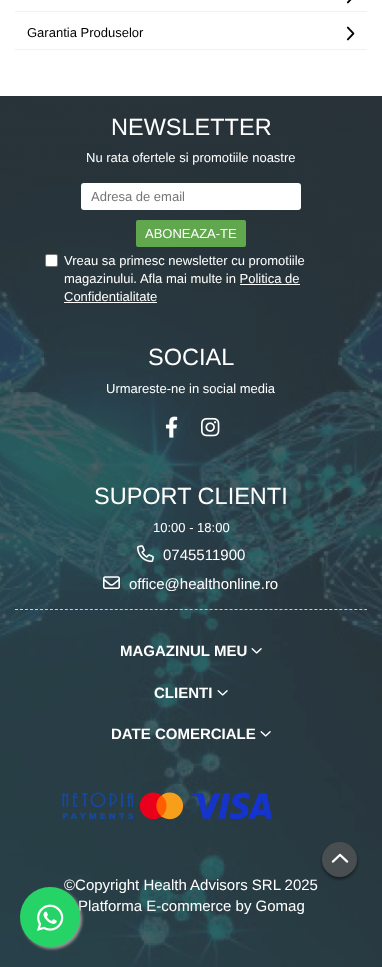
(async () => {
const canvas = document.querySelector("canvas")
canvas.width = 382
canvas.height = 967
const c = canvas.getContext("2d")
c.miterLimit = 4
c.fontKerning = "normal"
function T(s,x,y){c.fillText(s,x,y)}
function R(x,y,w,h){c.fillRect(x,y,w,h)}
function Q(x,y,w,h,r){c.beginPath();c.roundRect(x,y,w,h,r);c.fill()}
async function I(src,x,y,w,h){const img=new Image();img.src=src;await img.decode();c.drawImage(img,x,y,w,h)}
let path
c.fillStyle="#fff"
R(0,0,382,967)
c.fillStyle="#f1f1f1"
R(15,11,352,1)
await I("1.png",346,0,6,4)
R(15,49,352,1)
c.font="13px Liberation Sans"
c.fillStyle="#000"
T("Garantia Produselor",27,37)
await I("2.png",346,26,9,15)
await I("3.png",0,96,382,871)
c.fillStyle="#3e3e3ea6"
R(0,96,382,514)
path = new Path2D("M15 609.5h352")
c.strokeStyle="#ccc"
c.setLineDash([3,1.99])
c.stroke(path)
c.font="23.5px Liberation Sans"
c.fillStyle="#fff"
T("NEWSLETTER",111,135)
c.font="13px Liberation Sans"
T("Nu rata ofertele si promotiile noastre",86,162)
Q(81,183,220,27,3)
c.fillStyle="#757575"
T("Adresa de email",91,201)
c.fillStyle="#61a74d"
Q(136,220,110,27,2)
c.fillStyle="#fff"
T("ABONEAZA-TE",145,238)
c.beginPath()
c.roundRect(45.5,254.5,12,12,1.5)
c.fill()
c.strokeStyle="#767676"
c.setLineDash([])
c.stroke()
T("Vreau sa primesc newsletter cu promotiile",64,265)
T("magazinului. Afla mai multe in Politica de",64,283)
T("Confidentialitate",64,301)
R(240,284,60,1)
R(64,302,93,1)
c.font="23.5px Liberation Sans"
T("SOCIAL",148,365)
c.font="13px Liberation Sans"
T("Urmareste-ne in social media",106,393)
await I("4.png",165,416,13,22)
await I("5.png",201,417,19,20)
c.font="23.5px Liberation Sans"
T("SUPORT CLIENTI",94,504)
c.font="13px Liberation Sans"
T("10:00 - 18:00",153,532)
await I("6.png",137,545,17,18)
c.font="15px Liberation Sans"
T("0745511900",163,560)
await I("7.png",103,576,17,13)
T("office@healthonline.ro",129,589)
c.fillStyle="#3e3e3ea6"
R(0,610,382,357)
c.font="bold 15px Liberation Sans"
c.fillStyle="#fff"
T("MAGAZINUL MEU",120,656)
await I("8.png",251,648,11,6)
T("CLIENTI",154,698)
await I("9.png",217,690,11,6)
T("DATE COMERCIALE",111,739)
await I("10.png",260,731,11,6)
await I("11.png",62,792,210,28)
c.font="15px Liberation Sans"
T("©Copyright Health Advisors SRL 2025",64,890)
T("Platforma E-commerce by Gomag",78,911)
c.fillStyle="#00000080"
c.filter="blur(1.5px)"
c.beginPath()
c.roundRect(322,844,35,35,17.5)
c.fill()
c.filter="none"
c.fillStyle="#494f51"
c.beginPath()
c.arc(339.5,859.5,17.5,0,7)
c.fill()
await I("12.png",331,853,18,10)
c.fillStyle="#999"
c.filter="blur(1.5px)"
c.beginPath()
c.roundRect(22,889,60,60,30)
c.fill()
c.filter="none"
c.fillStyle="#25d366"
c.beginPath()
c.arc(50,917,30,0,7)
c.fill()
await I("13.png",37,904,27,27)
})()
